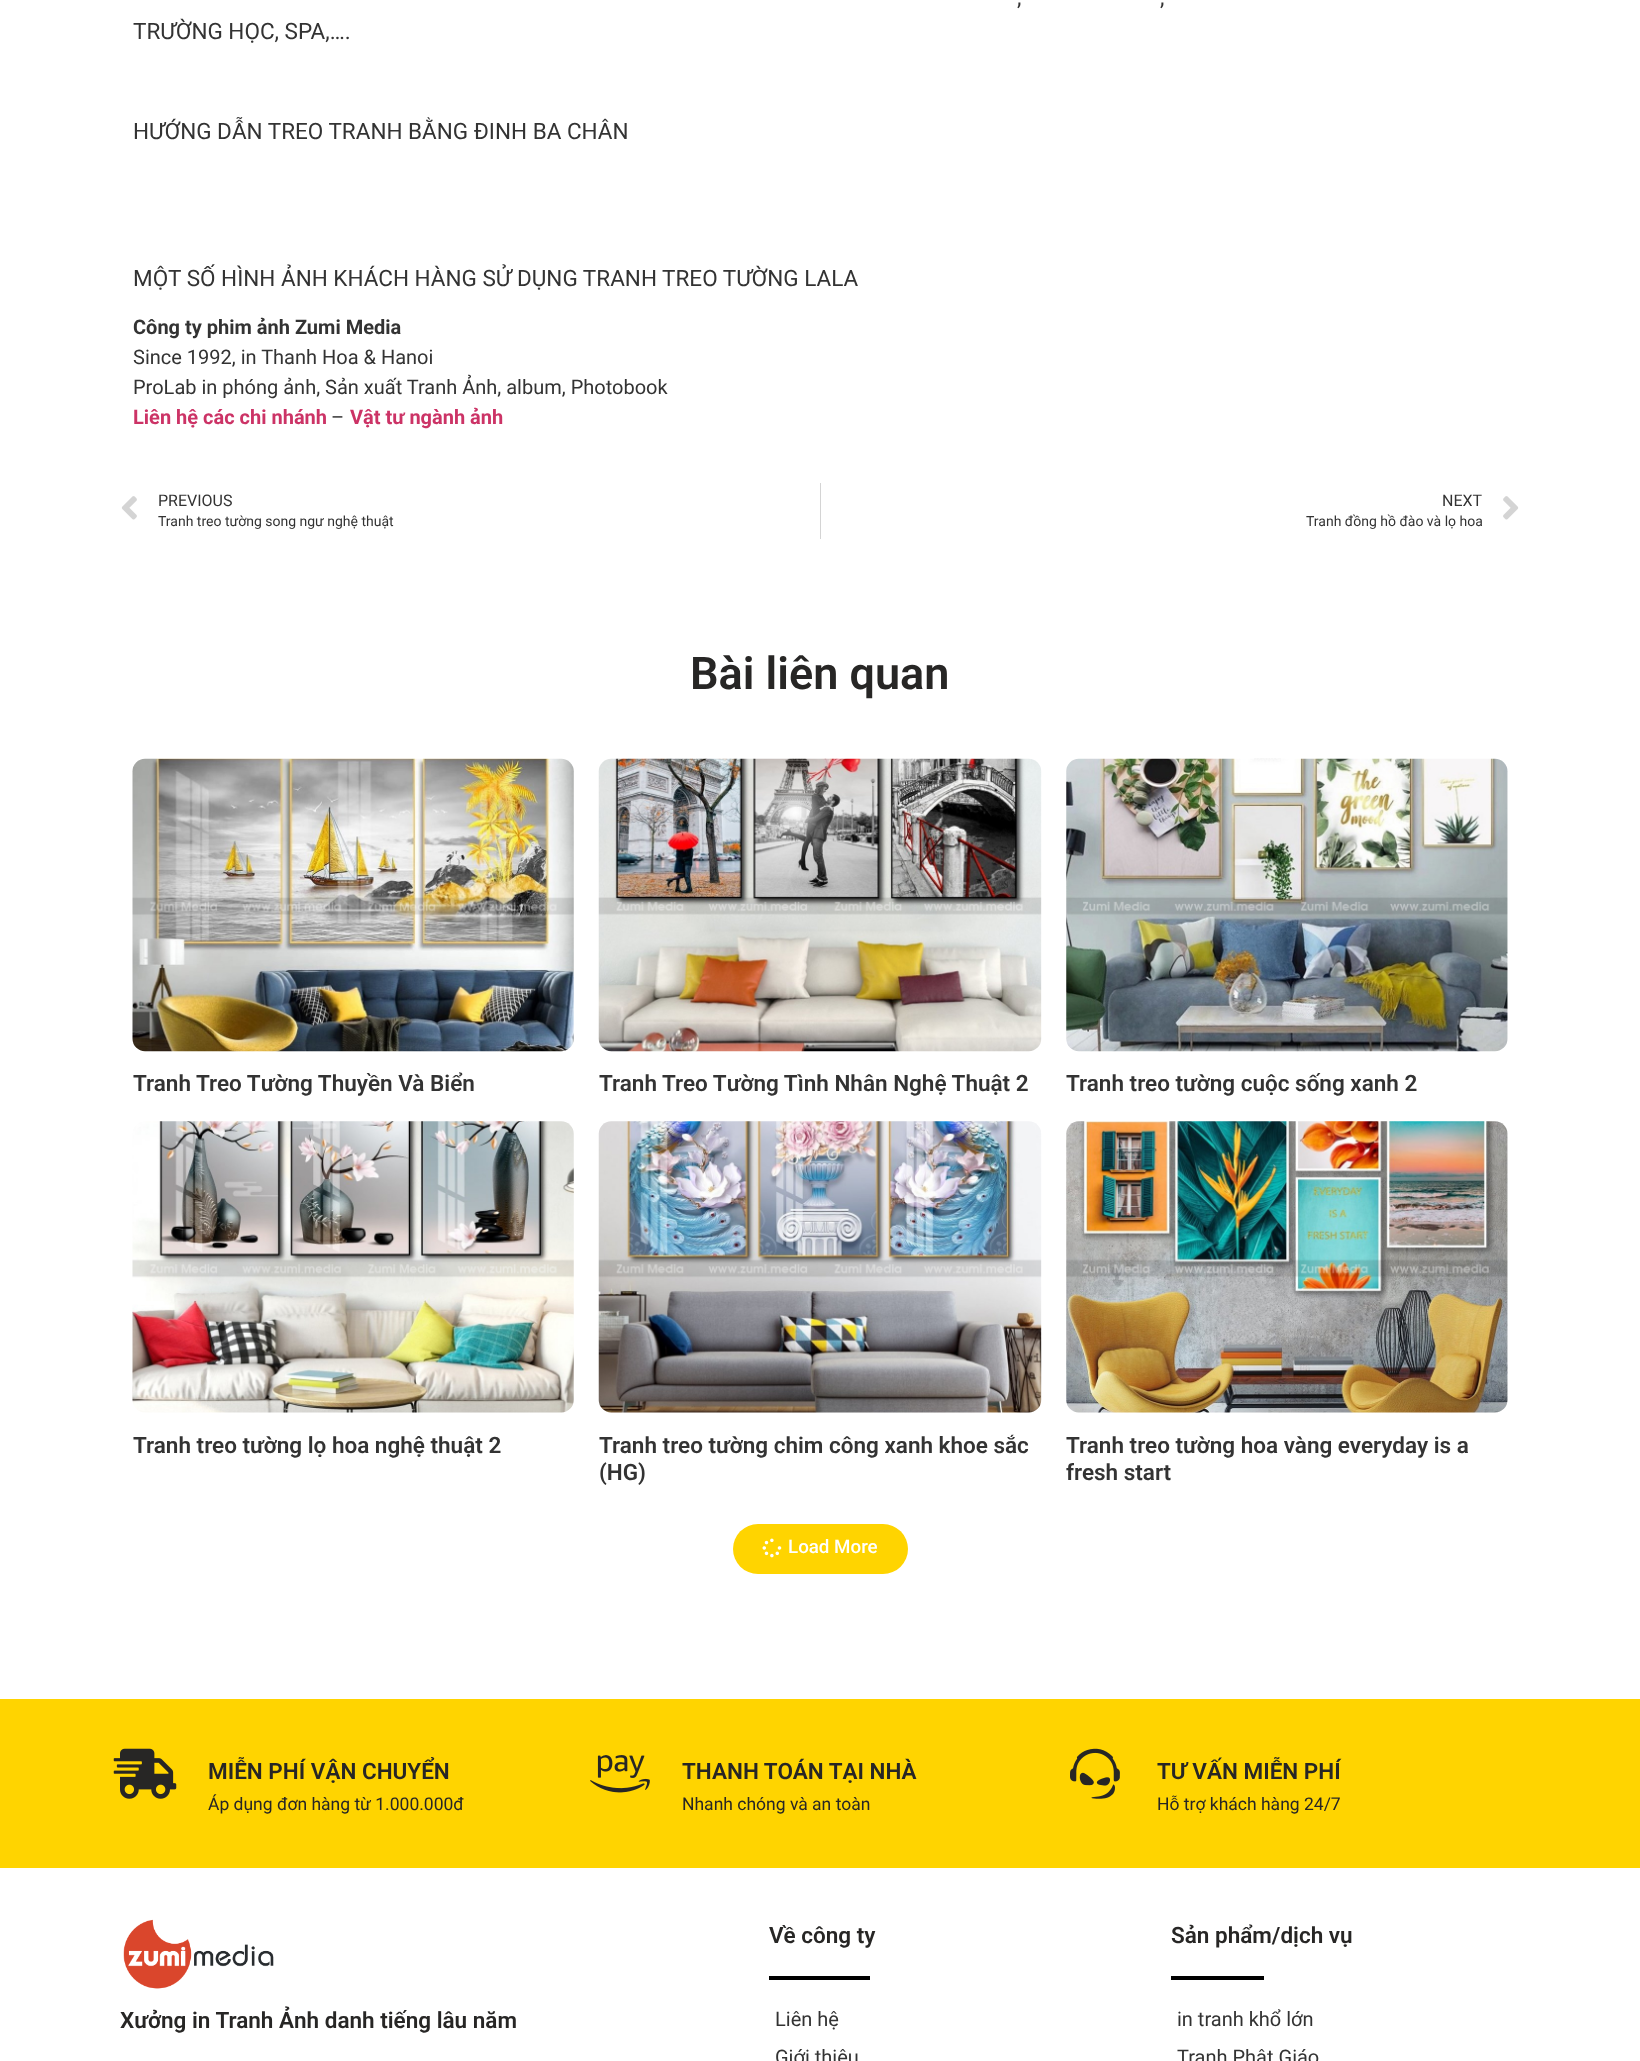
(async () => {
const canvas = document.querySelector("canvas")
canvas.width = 1640
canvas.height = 2061
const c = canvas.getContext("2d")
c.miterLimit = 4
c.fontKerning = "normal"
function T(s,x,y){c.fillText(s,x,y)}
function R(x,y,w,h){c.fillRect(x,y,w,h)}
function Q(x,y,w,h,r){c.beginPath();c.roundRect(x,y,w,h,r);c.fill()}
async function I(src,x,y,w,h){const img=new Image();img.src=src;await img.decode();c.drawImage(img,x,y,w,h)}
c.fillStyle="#fff"
R(0,0,1640,2061)
c.wordSpacing="2px"
c.font="22.5px Roboto"
c.fillStyle="#333"
T(",",1017,5)
T(",",1160,5)
c.wordSpacing="0px"
T("TRƯỜNG HỌC, SPA,….",133,39)
T("HƯỚNG DẪN TREO TRANH BẰNG ĐINH BA CHÂN",133,139)
T("MỘT SỐ HÌNH ẢNH KHÁCH HÀNG SỬ DỤNG TRANH TREO TƯỜNG LALA",133,286)
c.font="bold 20px Roboto"
T("Công ty phim ảnh Zumi Media",133,334)
c.font="20px Roboto"
T("Since 1992, in Thanh Hoa & Hanoi",133,364)
T("ProLab in phóng ảnh, Sản xuất Tranh Ảnh, album, Photobook",133,394)
c.font="bold 20px Roboto"
c.fillStyle="#c36"
T("Liên hệ các chi nhánh",133,424)
c.font="20px Roboto"
c.fillStyle="#333"
T("–",331,424)
c.font="bold 20px Roboto"
c.fillStyle="#c36"
T("Vật tư ngành ảnh",350,424)
await I("1.png",121,496,16,24)
c.font="16px Roboto"
c.fillStyle="#333"
T("PREVIOUS",158,506)
c.font="14px Roboto"
T("Tranh treo tường song ngư nghệ thuật",158,526)
c.fillStyle="#d4d4d4"
R(820,483,1,56)
c.font="16px Roboto"
c.fillStyle="#333"
T("NEXT",1442,506)
c.font="14px Roboto"
T("Tranh đồng hồ đào và lọ hoa",1306,526)
await I("2.png",1503,496,16,24)
c.font="600 45px Roboto"
c.fillStyle="#272625"
T("Bài liên quan",690,689)
await I("3.png",132,758,442,294)
c.font="600 22.5px Roboto"
c.fillStyle="#333"
T("Tranh Treo Tường Thuyền Và Biển",133,1091)
await I("4.png",598,758,444,294)
T("Tranh Treo Tường Tình Nhân Nghệ Thuật 2",599,1091)
await I("5.png",1066,758,442,294)
T("Tranh treo tường cuộc sống xanh 2",1066,1091)
await I("6.png",132,1121,442,292)
T("Tranh treo tường lọ hoa nghệ thuật 2",133,1453)
await I("7.png",598,1121,444,292)
T("Tranh treo tường chim công xanh khoe sắc",599,1453)
T("(HG)",599,1480)
await I("8.png",1066,1121,442,292)
T("Tranh treo tường hoa vàng everyday is a",1066,1453)
T("fresh start",1066,1480)
c.fillStyle="#ffd400"
Q(733,1524,175,50,25)
await I("9.png",762,1538,20,20)
c.font="500 18.75px Roboto"
c.fillStyle="#fff"
T("Load More",788,1553)
c.fillStyle="#ffd400"
R(0,1699,1640,169)
await I("10.png",113,1748,64,51)
c.font="600 22.5px Roboto"
c.fillStyle="#272625"
T("MIỄN PHÍ VẬN CHUYỂN",208,1779)
c.font="17.5px Roboto"
T("Áp dụng đơn hàng từ 1.000.000đ",208,1810)
await I("11.png",590,1755,60,38)
c.font="600 22.5px Roboto"
T("THANH TOÁN TẠI NHÀ",682,1779)
c.font="17.5px Roboto"
T("Nhanh chóng và an toàn",682,1810)
await I("12.png",1070,1748,50,51)
c.font="600 22.5px Roboto"
T("TƯ VẤN MIỄN PHÍ",1157,1779)
c.font="17.5px Roboto"
T("Hỗ trợ khách hàng 24/7",1157,1810)
await I("13.png",123,1919,151,70)
c.font="600 22.5px Roboto"
T("Xưởng in Tranh Ảnh danh tiếng lâu năm",120,2028)
T("Về công ty",769,1943)
c.fillStyle="#000"
R(769,1976,101,4)
c.font="20px Roboto"
c.fillStyle="#333"
T("Liên hệ",775,2026)
T("Giới thiệu",775,2064)
c.font="600 22.5px Roboto"
c.fillStyle="#272625"
T("Sản phẩm/dịch vụ",1171,1943)
c.fillStyle="#000"
R(1171,1976,93,4)
c.font="20px Roboto"
c.fillStyle="#333"
T("in tranh khổ lớn",1177,2026)
T("Tranh Phật Giáo",1177,2064)
})()
